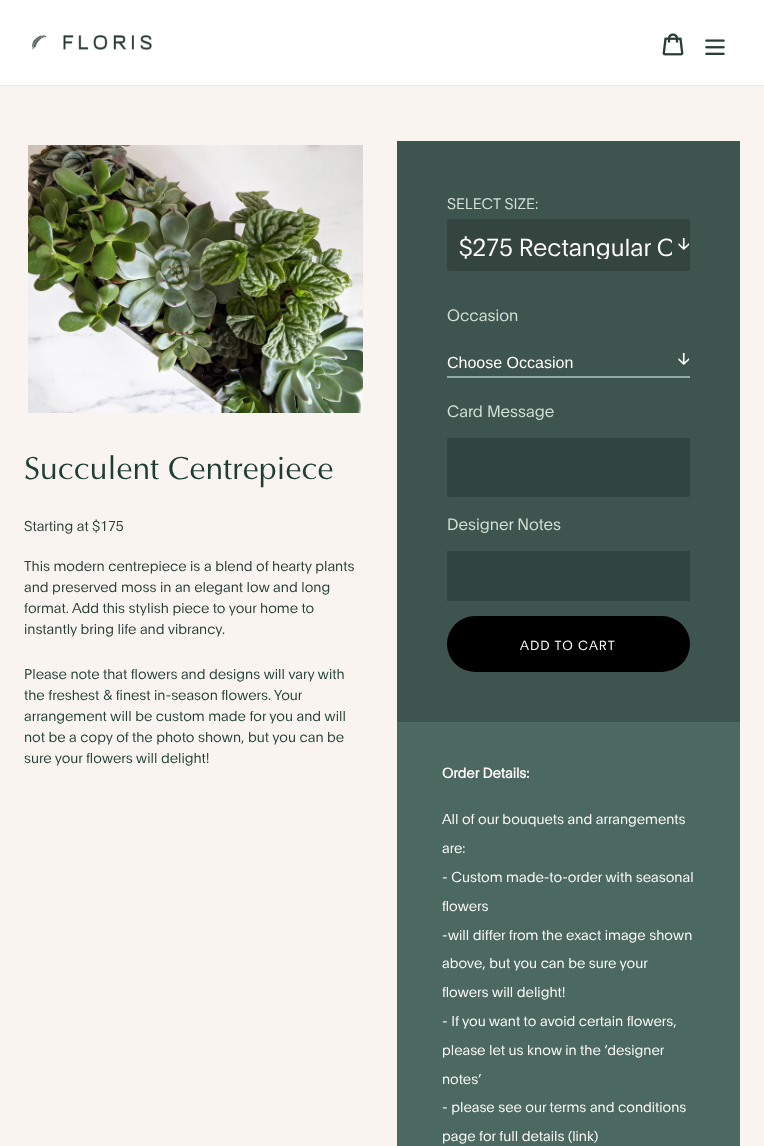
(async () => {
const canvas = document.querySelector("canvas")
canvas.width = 764
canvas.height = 1146
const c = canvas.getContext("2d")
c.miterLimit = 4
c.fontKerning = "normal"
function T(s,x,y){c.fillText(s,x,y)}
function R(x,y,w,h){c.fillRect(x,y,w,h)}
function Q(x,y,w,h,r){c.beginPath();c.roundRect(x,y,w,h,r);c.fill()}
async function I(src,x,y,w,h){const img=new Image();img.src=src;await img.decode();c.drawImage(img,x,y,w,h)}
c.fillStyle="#f9f4f0"
R(0,0,764,1146)
c.fillStyle="#fff"
R(0,0,764,85)
c.fillStyle="#e8e9eb"
R(0,85,764,1)
await I("1.png",32,35,120,15)
await I("2.png",662,33,22,23)
await I("3.png",705,39,20,16)
await I("4.png",28,145,335,268)
c.font="32px Optima"
c.fillStyle="#1e3d34"
T("Succulent Centrepiece",24,479)
c.font="300 14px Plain"
c.fillStyle="#2a3e38"
T("Starting at $175",24,531)
T("This modern centrepiece is a blend of hearty plants",24,571)
T("and preserved moss in an elegant low and long",24,592)
T("format. Add this stylish piece to your home to",24,613)
T("instantly bring life and vibrancy.",24,634)
c.fillStyle="#1e3d34"
T("Please note that flowers and designs will vary with",24,679)
T("the freshest & finest in-season flowers. Your",24,700)
T("arrangement will be custom made for you and will",24,721)
T("not be a copy of the photo shown, but you can be",24,742)
T("sure your flowers will delight!",24,763)
c.fillStyle="#3e544e"
R(397,141,343,581)
c.font="300 15px Plain"
c.fillStyle="#d4e1d4"
T("SELECT SIZE:",447,209)
c.fillStyle="#34443f"
Q(447,219,243,52,2)
await I("5.png",678,238,12,12)
c.save()
c.beginPath()
c.rect(459,231,213,28)
c.clip()
c.font="300 24px Plain"
c.fillStyle="#fffcfb"
T("$275 Rectangular C",459,256)
c.restore()
c.font="300 16px Plain"
c.fillStyle="#d4e1d4"
T("Occasion",447,321)
await I("6.png",678,353,12,12)
c.fillStyle="#8faca4"
R(447,376,243,2)
c.font="16px Liberation Sans"
c.fillStyle="#fffcfb"
T("Choose Occasion",447,368)
c.font="300 16px Plain"
c.fillStyle="#d4e1d4"
T("Card Message",447,417)
c.fillStyle="#2f453f"
Q(447,438,243,59,2)
c.fillStyle="#d4e1d4"
T("Designer Notes",447,530)
c.fillStyle="#2f453f"
R(447,551,243,50)
c.fillStyle="#000"
Q(447,616,243,56,28)
c.letterSpacing="1px"
c.font="300 13px Plain"
c.fillStyle="#fffcfb"
T("ADD TO CART",520,650)
c.fillStyle="#4c6961"
R(397,722,343,424)
c.letterSpacing="0px"
c.font="bold 14px Plain"
c.fillStyle="#fffcfb"
T("Order Details:",442,778)
c.font="300 14px Plain"
T("All of our bouquets and arrangements",442,824)
T("are:",442,853)
T("- Custom made-to-order with seasonal",442,882)
T("flowers",442,911)
T("-will differ from the exact image shown",442,940)
T("above, but you can be sure your",442,968)
T("flowers will delight!",442,997)
T("- If you want to avoid certain flowers,",442,1026)
T("please let us know in the ‘designer",442,1055)
T("notes’",442,1084)
T("- please see our terms and conditions",442,1112)
T("page for full details (link)",442,1141)
})()
